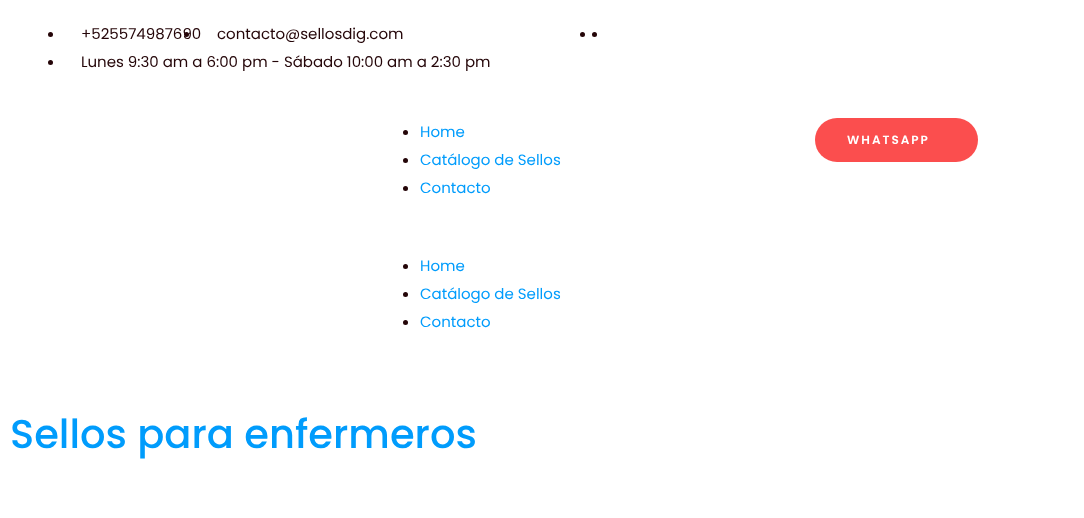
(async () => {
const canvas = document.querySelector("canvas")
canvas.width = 1084
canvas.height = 518
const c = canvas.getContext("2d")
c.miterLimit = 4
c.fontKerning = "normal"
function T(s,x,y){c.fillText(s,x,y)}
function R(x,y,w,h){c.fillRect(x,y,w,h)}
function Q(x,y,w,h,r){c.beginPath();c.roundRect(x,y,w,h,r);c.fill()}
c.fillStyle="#fff"
R(0,0,1084,518)
c.fillStyle="#240508"
c.beginPath()
c.arc(50.5,34.5,2.5,0,7)
c.fill()
c.font="15px Poppins"
T("+525574987690",81,39)
c.beginPath()
c.arc(186.5,34.5,2.5,0,7)
c.fill()
T("contacto@sellosdig.com",217,39)
c.beginPath()
c.arc(50.5,62.5,2.5,0,7)
c.fill()
T("Lunes 9:30 am a 6:00 pm - Sábado 10:00 am a 2:30 pm",81,67)
c.beginPath()
c.arc(582.5,34.5,2.5,0,7)
c.fill()
c.beginPath()
c.arc(594.5,34.5,2.5,0,7)
c.fill()
c.beginPath()
c.arc(405.5,132.5,2.5,0,7)
c.fill()
c.fillStyle="#009cfc"
T("Home",420,137)
c.fillStyle="#240508"
c.beginPath()
c.arc(405.5,160.5,2.5,0,7)
c.fill()
c.fillStyle="#009cfc"
T("Catálogo de Sellos",420,165)
c.fillStyle="#240508"
c.beginPath()
c.arc(405.5,188.5,2.5,0,7)
c.fill()
c.fillStyle="#009cfc"
T("Contacto",420,193)
c.fillStyle="#240508"
c.beginPath()
c.arc(405.5,266.5,2.5,0,7)
c.fill()
c.fillStyle="#009cfc"
T("Home",420,271)
c.fillStyle="#240508"
c.beginPath()
c.arc(405.5,294.5,2.5,0,7)
c.fill()
c.fillStyle="#009cfc"
T("Catálogo de Sellos",420,299)
c.fillStyle="#240508"
c.beginPath()
c.arc(405.5,322.5,2.5,0,7)
c.fill()
c.fillStyle="#009cfc"
T("Contacto",420,327)
c.fillStyle="#fb4e4e"
Q(815,118,163,44,22)
c.letterSpacing="2px"
c.font="600 12px Poppins"
c.fillStyle="#fff"
T("WHATSAPP",847,144)
c.letterSpacing="0px"
c.font="500 40px Poppins"
c.fillStyle="#009cfc"
T("Sellos para enfermeros",10,448)
})()
